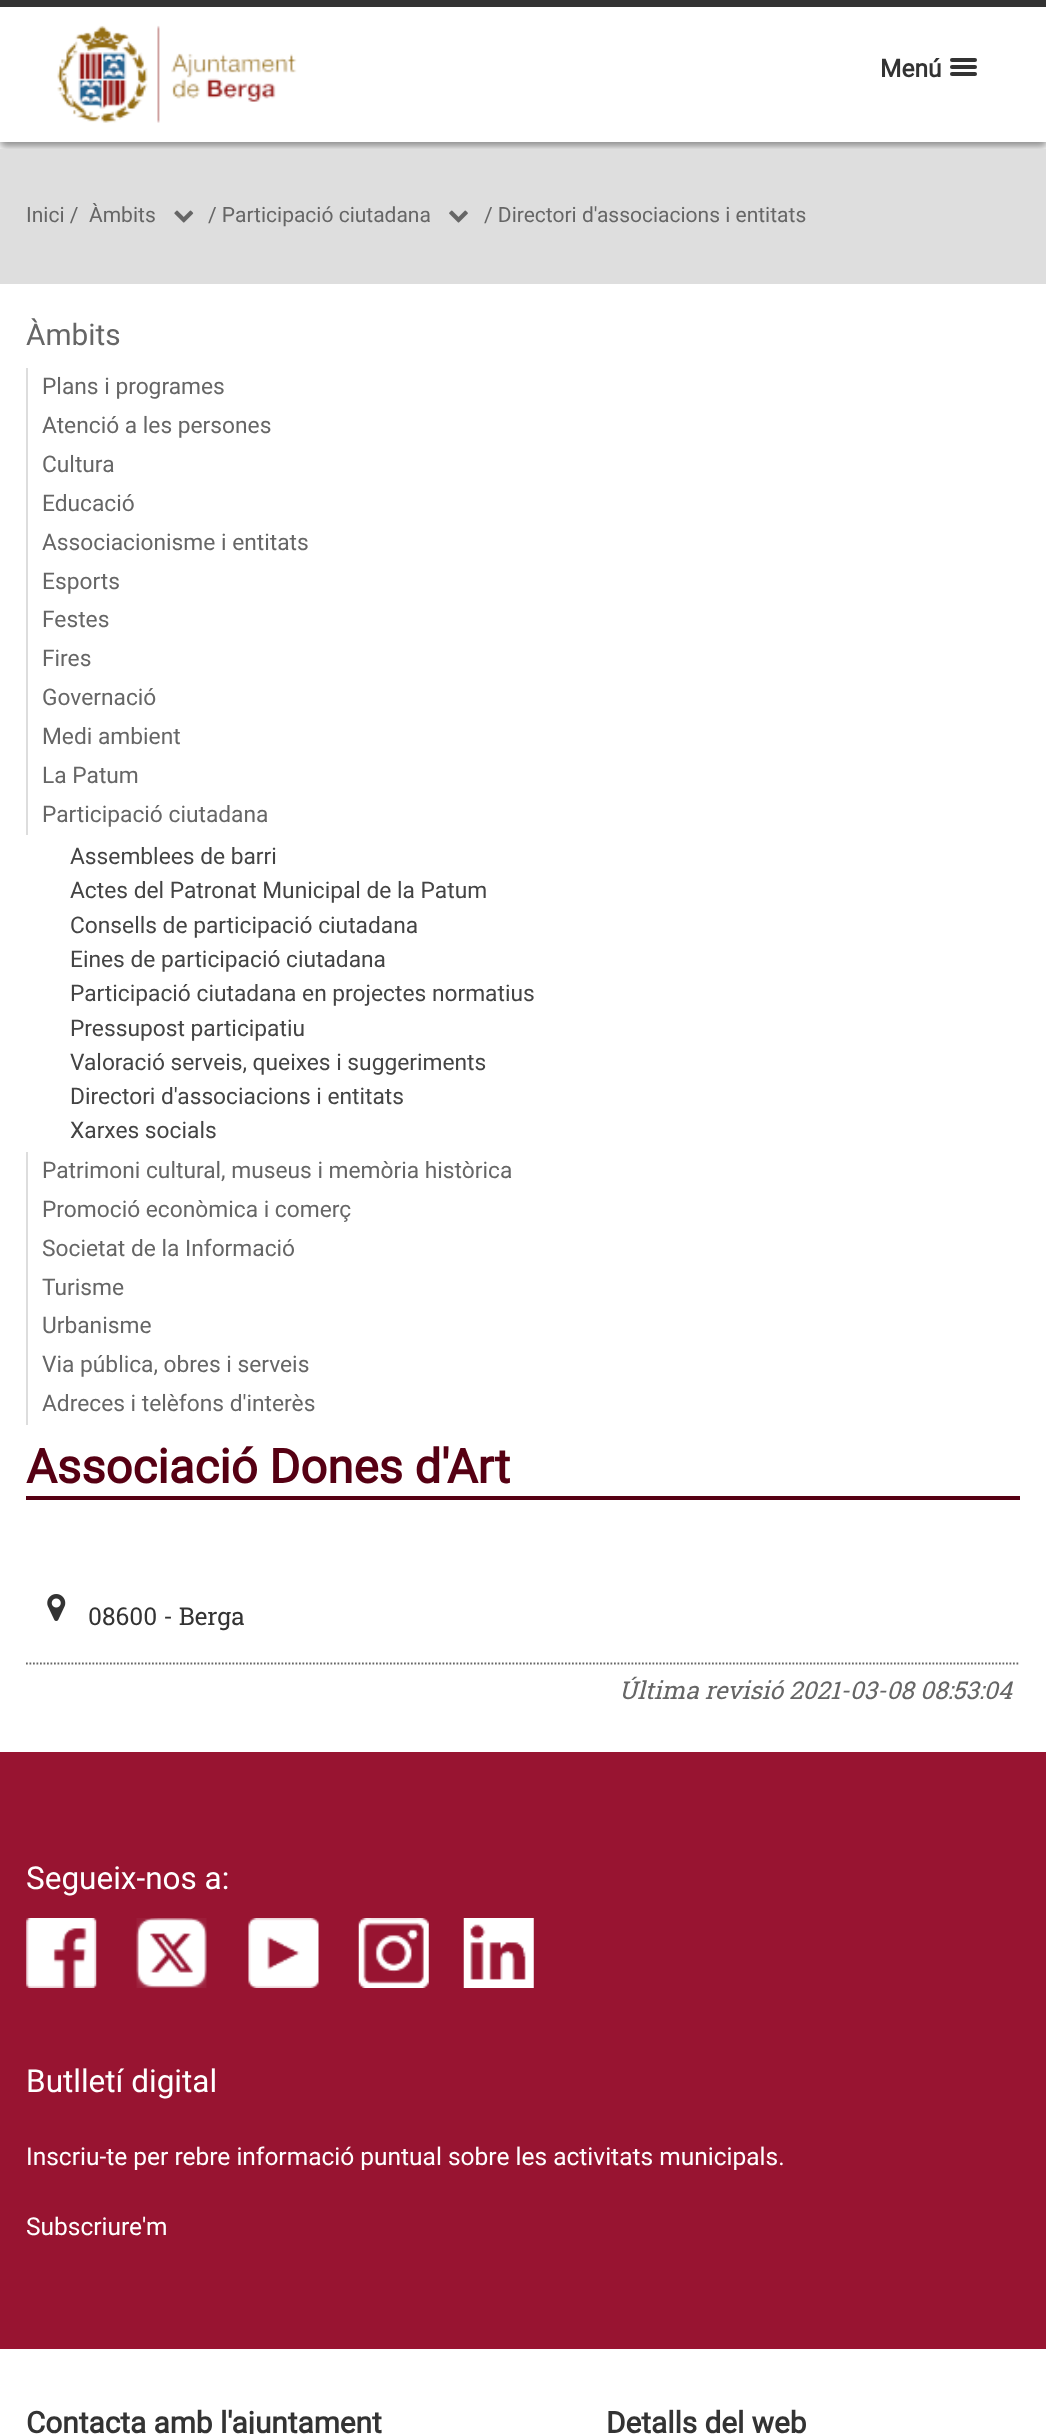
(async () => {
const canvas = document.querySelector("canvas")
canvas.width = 1046
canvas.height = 2434
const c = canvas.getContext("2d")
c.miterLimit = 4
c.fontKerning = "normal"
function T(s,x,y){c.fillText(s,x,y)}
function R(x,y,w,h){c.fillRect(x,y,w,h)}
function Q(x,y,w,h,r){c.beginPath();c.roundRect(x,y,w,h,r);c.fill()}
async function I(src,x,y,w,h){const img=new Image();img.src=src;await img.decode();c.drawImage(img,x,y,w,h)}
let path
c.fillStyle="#fff"
R(0,0,1046,2434)
c.fillStyle="#00000073"
c.filter="blur(4.5px)"
c.beginPath()
c.rect(0,5,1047,142)
c.fill()
c.filter="none"
c.fillStyle="#fff"
R(0,7,1046,135)
c.fillStyle="#333"
R(0,0,1046,7)
await I("1.png",57,25,240,98)
c.font="bold 24.5px Roboto"
T("Menú",880,77)
Q(950,58,27,4,2)
Q(950,65,27,4,2)
Q(950,72,27,4,2)
c.fillStyle="#dedede"
R(0,149,1046,135)
c.font="21px Roboto"
c.fillStyle="#666"
T("Inici /",26,222)
T("Àmbits",89,222)
await I("2.png",174,210,20,13)
T("/ Participació ciutadana",208,222)
await I("3.png",449,210,19,13)
T("/ Directori d'associacions i entitats",484,222)
c.font="29.75px Roboto"
T("Àmbits",26,345)
c.fillStyle="#ddd"
R(26,368,2,467)
c.font="22.75px Roboto"
c.fillStyle="#666"
T("Plans i programes",42,394)
T("Atenció a les persones",42,433)
T("Cultura",42,472)
T("Educació",42,511)
T("Associacionisme i entitats",42,550)
T("Esports",42,589)
T("Festes",42,627)
T("Fires",42,666)
T("Governació",42,705)
T("Medi ambient",42,744)
T("La Patum",42,783)
T("Participació ciutadana",42,822)
c.fillStyle="#444"
T("Assemblees de barri",70,864)
T("Actes del Patronat Municipal de la Patum",70,898)
T("Consells de participació ciutadana",70,933)
T("Eines de participació ciutadana",70,967)
T("Participació ciutadana en projectes normatius",70,1001)
T("Pressupost participatiu",70,1036)
T("Valoració serveis, queixes i suggeriments",70,1070)
T("Directori d'associacions i entitats",70,1104)
T("Xarxes socials",70,1138)
c.fillStyle="#ddd"
R(26,1152,2,273)
c.fillStyle="#666"
T("Patrimoni cultural, museus i memòria històrica",42,1178)
T("Promoció econòmica i comerç",42,1217)
T("Societat de la Informació",42,1256)
T("Turisme",42,1295)
T("Urbanisme",42,1333)
T("Via pública, obres i serveis",42,1372)
T("Adreces i telèfons d'interès",42,1411)
c.fillStyle="#560013"
R(26,1496,994,4)
c.font="bold 47.25px Roboto"
T("Associació Dones d'Art",26,1483)
await I("4.png",47,1594,19,27)
c.font="24.5px Roboto Slab"
c.fillStyle="#333"
T("08600 - Berga",88,1625)
path = new Path2D("M26 1663.5h994")
c.strokeStyle="#666"
c.lineWidth=1.8
c.setLineDash([1.75,1.75])
c.stroke(path)
c.font="italic 24.5px Roboto Slab"
c.fillStyle="#666"
T("Última revisió 2021-03-08 08:53:04",619,1699)
c.fillStyle="#981431"
R(0,1752,1046,597)
c.font="31.5px Roboto"
c.fillStyle="#fff"
T("Segueix-nos a:",26,1889)
await I("5.png",26,1918,71,70)
await I("6.png",136,1918,71,70)
await I("7.png",248,1918,71,70)
await I("8.png",358,1918,71,70)
await I("9.png",463,1918,71,70)
T("Butlletí digital",26,2092)
c.font="24.5px Roboto"
T("Inscriu-te per rebre informació puntual sobre les activitats municipals.",26,2165)
T("Subscriure'm",26,2235)
c.font="bold 29.75px Roboto"
c.fillStyle="#333"
T("Contacta amb l'ajuntament",26,2433)
T("Detalls del web",606,2433)
})()
